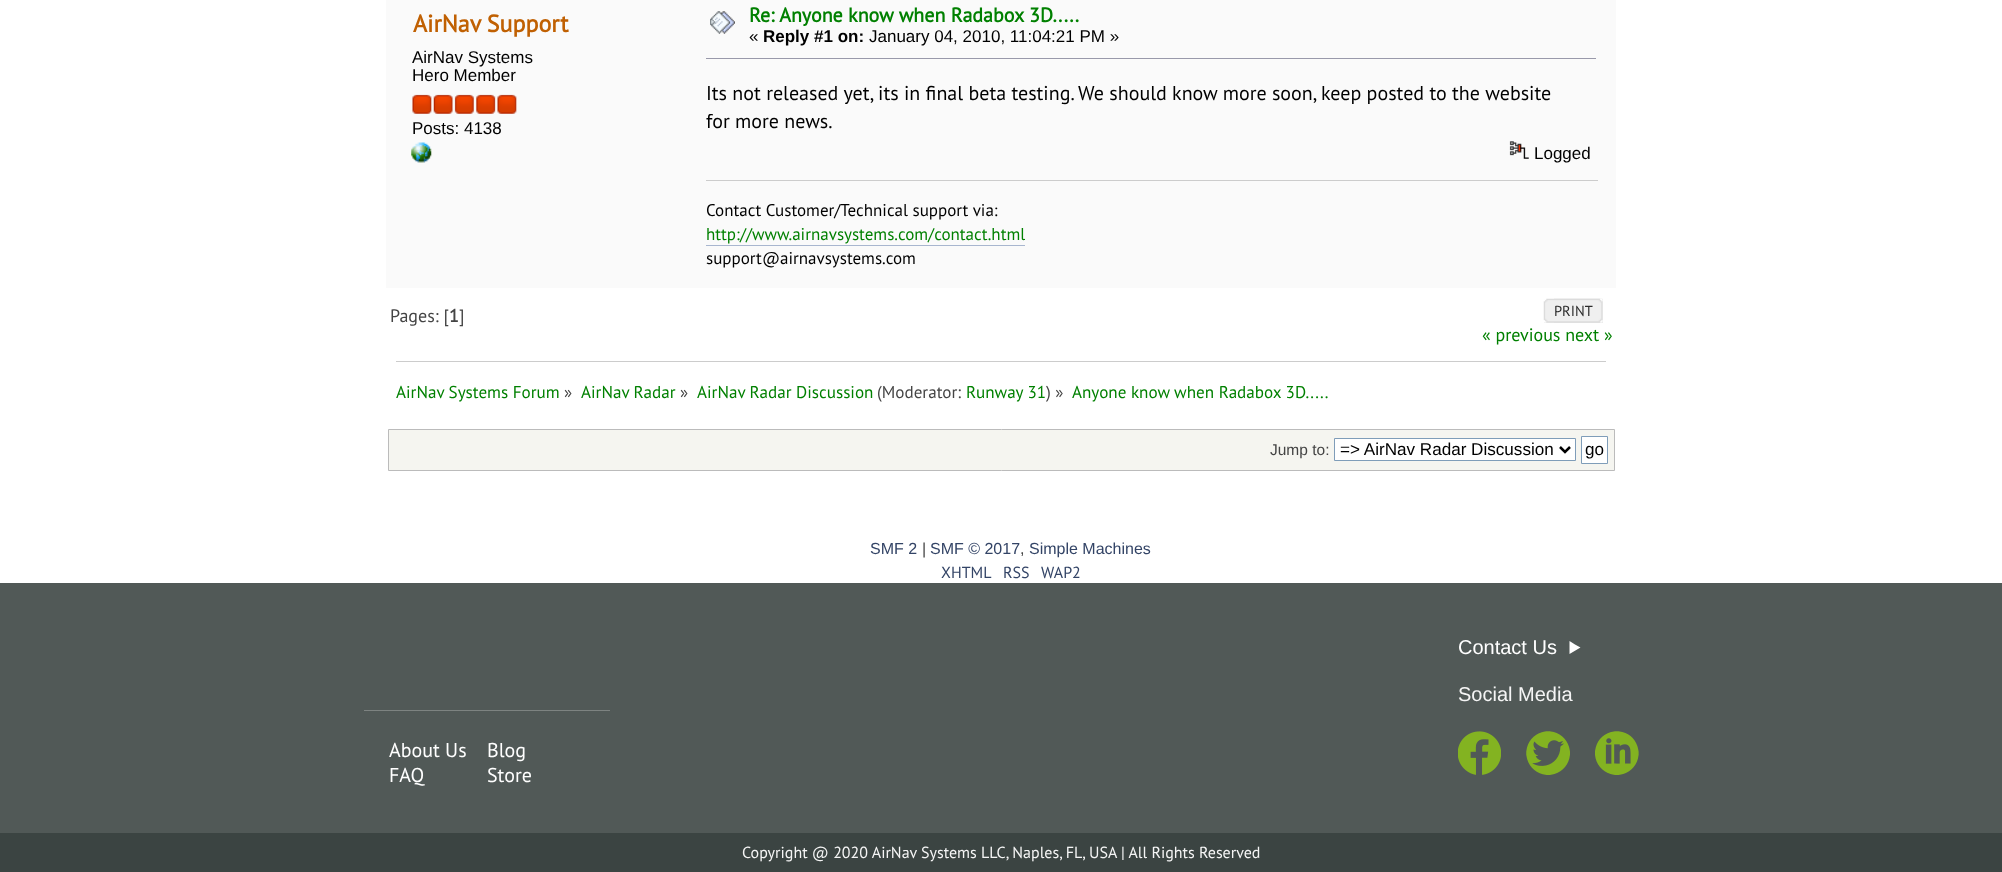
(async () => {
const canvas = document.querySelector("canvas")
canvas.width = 2002
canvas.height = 872
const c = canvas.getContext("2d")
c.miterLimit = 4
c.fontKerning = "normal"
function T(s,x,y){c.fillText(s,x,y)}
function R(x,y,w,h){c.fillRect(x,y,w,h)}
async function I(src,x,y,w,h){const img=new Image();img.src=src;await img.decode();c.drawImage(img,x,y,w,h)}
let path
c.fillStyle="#fff"
R(0,0,2002,872)
c.fillStyle="#fafafa"
R(386,0,1230,288)
c.font="bold 24px PT Sans"
c.fillStyle="#c06002"
T("AirNav Support",413,32)
c.font="17px Liberation Sans"
c.fillStyle="#000"
T("AirNav Systems",412,63)
T("Hero Member",412,81)
await I("1.png",412,94,20,20)
await I("2.png",433,94,20,20)
await I("3.png",454,94,20,20)
await I("4.png",476,94,20,20)
await I("1.png",497,94,20,20)
T("Posts: 4138",412,134)
await I("5.png",411,142,21,21)
await I("6.png",710,11,25,23)
c.font="bold 20px PT Sans"
c.fillStyle="#008000"
T("Re: Anyone know when Radabox 3D.....",749,22)
c.font="17px Liberation Sans"
c.fillStyle="#000"
T("«",749,42)
c.font="bold 17px Liberation Sans"
T("Reply #1 on:",763,42)
c.font="17px Liberation Sans"
T("January 04, 2010, 11:04:21 PM »",869,42)
c.fillStyle="#99a"
R(706,58,890,1)
c.font="20px PT Sans"
c.fillStyle="#000"
T("Its not released yet, its in final beta testing. We should know more soon, keep posted to the website",706,100)
T("for more news.",706,128)
await I("7.png",1509,141,20,18)
c.font="17px Liberation Sans"
T("Logged",1534,159)
c.fillStyle="#ccc"
R(706,180,892,1)
c.font="17px PT Sans"
c.fillStyle="#000"
T("Contact Customer/Technical support via:",706,216)
c.fillStyle="#008000"
T("http://www.airnavsystems.com/contact.html",706,240)
c.fillStyle="#a8b6cf"
R(706,245,319,1)
c.fillStyle="#000"
T("support@airnavsystems.com",706,264)
c.font="18px PT Sans"
c.fillStyle="#444"
T("Pages: [",390,322)
c.font="bold 18px PT Sans"
T("1",449,322)
c.font="18px PT Sans"
T("]",459,322)
c.fillStyle="#e8e8e8"
R(1544,299,59,24)
await I("8.png",1543,298,60,25)
await I("9.png",1554,298,49,25)
c.font="14.5px PT Sans"
c.fillStyle="#2b2b2b"
T("PRINT",1554,316)
c.font="18px PT Sans"
c.fillStyle="#008000"
T("« previous next »",1482,341)
c.fillStyle="#ccc"
R(396,361,1210,1)
c.font="17.1px PT Sans"
c.fillStyle="#008000"
T("AirNav Systems Forum",396,398)
c.fillStyle="#444"
T("»",564,398)
c.fillStyle="#008000"
T("AirNav Radar",581,398)
c.fillStyle="#444"
T("»",680,398)
c.fillStyle="#008000"
T("AirNav Radar Discussion",697,398)
c.fillStyle="#444"
T("(Moderator:",877,398)
c.fillStyle="#008000"
T("Runway 31",966,398)
c.fillStyle="#444"
T(") »",1046,398)
c.fillStyle="#008000"
T("Anyone know when Radabox 3D.....",1072,398)
c.fillStyle="#f5f5f0"
c.beginPath()
c.rect(388.5,429.5,1226,41)
c.fill()
c.strokeStyle="#bbb"
c.stroke()
c.font="15.5px Liberation Sans"
c.fillStyle="#444"
T("Jump to:",1270,455)
c.fillStyle="#fff"
c.beginPath()
c.rect(1334.5,438.5,241,22)
c.fill()
c.strokeStyle="#7f9db9"
c.stroke()
path = new Path2D("M1560 447l5 5l5-5")
c.strokeStyle="#000"
c.lineWidth=2.5
c.stroke(path)
c.font="17.1px Liberation Sans"
c.fillStyle="#000"
T("=> AirNav Radar Discussion",1340,455)
c.fillStyle="#fff"
c.beginPath()
c.rect(1581.5,436.5,26,27)
c.fill()
c.strokeStyle="#7f9db9"
c.lineWidth=1
c.stroke()
c.fillStyle="#000"
T("go",1585,455)
c.font="16px Liberation Sans"
c.fillStyle="#346"
T("SMF 2",870,554)
c.fillStyle="#444"
T("|",922,554)
c.fillStyle="#346"
T("SMF © 2017",930,554)
c.fillStyle="#444"
T(",",1020,554)
c.fillStyle="#346"
T("Simple Machines",1029,554)
c.font="16px PT Sans"
T("XHTML",941,578)
T("RSS",1003,578)
T("WAP2",1041,578)
c.fillStyle="#515957"
R(0,583,2002,250)
c.font="20px Liberation Sans"
c.fillStyle="#fff"
T("Contact Us",1458,654)
path = new Path2D("M1580.5 647.5l-11 6.5v-13l5.5 3.5z")
c.fill(path)
c.fillStyle="#f5f5f5"
T("Social Media",1458,701)
await I("10.png",1458,731,43,44)
await I("11.png",1526,731,44,44)
await I("12.png",1595,731,44,44)
c.fillStyle="#7d8381"
R(364,710,246,1)
c.font="20px PT Sans"
c.fillStyle="#fff"
T("About Us",389,757)
T("Blog",487,757)
T("FAQ",389,782)
T("Store",487,782)
c.fillStyle="#3b4442"
R(0,833,2002,39)
c.font="16px PT Sans"
c.fillStyle="#f5f5f5"
T("Copyright @ 2020 AirNav Systems LLC, Naples, FL, USA | All Rights Reserved",742,858)
})()
